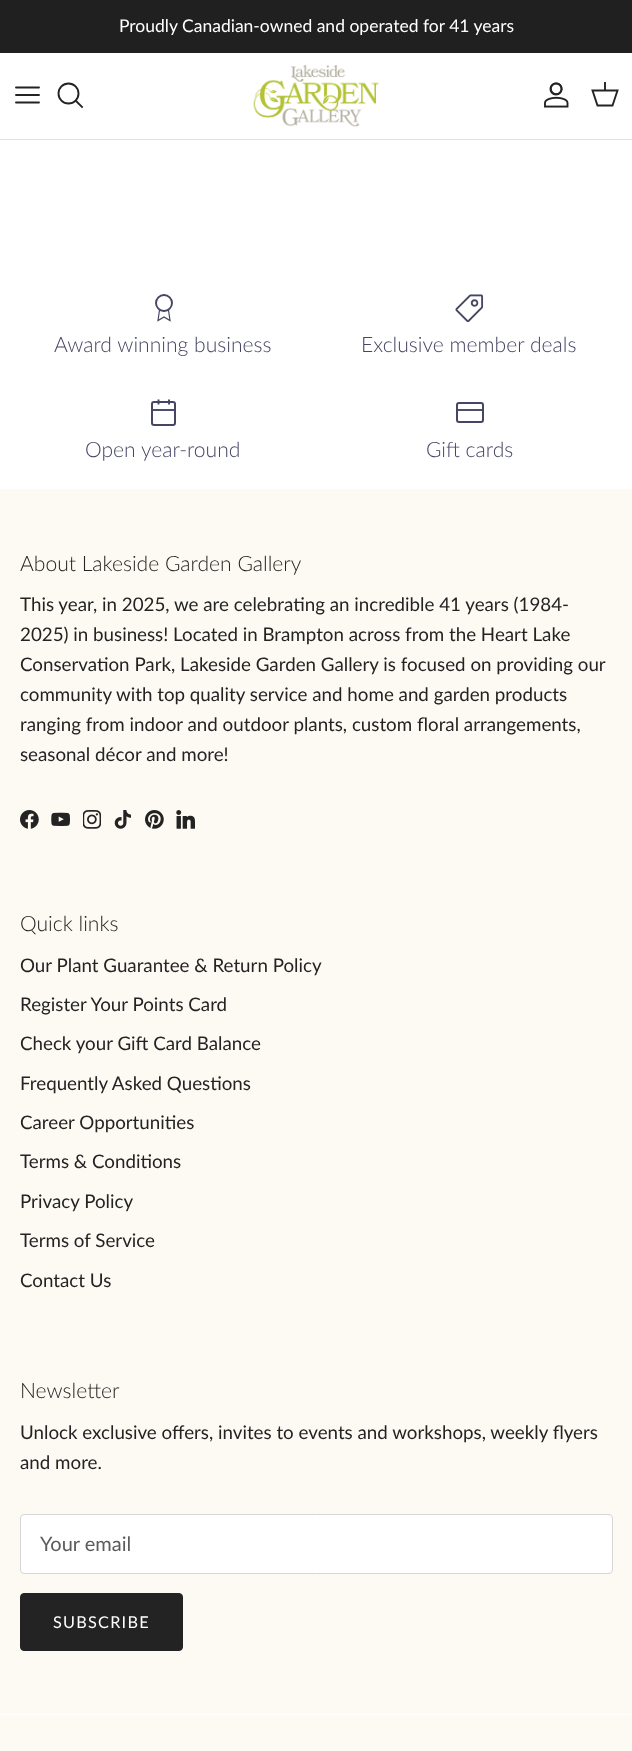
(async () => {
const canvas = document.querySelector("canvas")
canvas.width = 632
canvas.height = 1751
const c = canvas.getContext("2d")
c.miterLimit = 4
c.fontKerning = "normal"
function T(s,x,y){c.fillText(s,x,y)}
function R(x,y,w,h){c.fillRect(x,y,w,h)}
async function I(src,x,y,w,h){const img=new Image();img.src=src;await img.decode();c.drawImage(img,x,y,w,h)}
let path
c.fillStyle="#fff"
R(0,0,632,1751)
c.fillStyle="#202020"
R(0,0,632,53)
c.font="17.5px Lato"
c.fillStyle="#fff"
T("Proudly Canadian-owned and operated for 41 years",119,32)
c.fillStyle="#dfe3e8"
R(0,139,632,1)
path = new Path2D("M16 95h23m-23-7.5h23m-23 15h23")
c.strokeStyle="#232323"
c.lineWidth=1.9
c.lineCap="round"
c.lineJoin="round"
c.stroke(path)
c.beginPath()
c.arc(68.5,93.5,10,0,7)
c.stroke()
path = new Path2D("M76 101l6 6")
c.lineCap="square"
c.lineJoin="miter"
c.stroke(path)
await I("1.png",253,65,126,62)
await I("2.png",544,82,25,26)
path = new Path2D("M592.5 90.5h25l-5 15h-15z")
c.lineCap="butt"
c.stroke(path)
c.fillStyle="#232323f2"
R(604,82,2,9)
c.beginPath()
c.arc(164,303,8,0,7)
c.strokeStyle="#454564"
c.stroke()
path = new Path2D("M159.5 310l-1.5 10.5l6-3.5l6 3.5l-1.5-10.5")
c.lineWidth=1.2
c.stroke(path)
c.font="300 21.1px Lato"
c.fillStyle="#454564"
T("Award winning business",54,352)
await I("3.png",455,294,29,29)
T("Exclusive member deals",361,352)
c.beginPath()
c.roundRect(152,402,23,23,2)
c.lineWidth=2
c.stroke()
path = new Path2D("M169 399.5v5m-10.5-5v5")
c.lineWidth=1.9
c.stroke(path)
c.fillStyle="#454564f2"
R(153,409,22,2)
c.fillStyle="#454564"
T("Open year-round",85,457)
c.beginPath()
c.roundRect(457,403,26,19,2)
c.lineWidth=2
c.stroke()
c.fillStyle="#454564f2"
R(457,409,27,2)
c.fillStyle="#454564"
T("Gift cards",426,457)
c.fillStyle="#fcfaf3"
R(0,489,632,1262)
c.fillStyle="#232323"
T("About Lakeside Garden Gallery",20,571)
c.font="18.75px Lato"
T("This year, in 2025, we are celebrating an incredible 41 years (1984-",20,611)
T("2025) in business! Located in Brampton across from the Heart Lake",20,641)
T("Conservation Park, Lakeside Garden Gallery is focused on providing our",20,671)
T("community with top quality service and home and garden products",20,701)
T("ranging from indoor and outdoor plants, custom floral arrangements,",20,731)
T("seasonal décor and more!",20,761)
await I("4.png",20,810,19,19)
await I("5.png",51,812,19,14)
await I("6.png",83,810,18,19)
await I("7.png",114,810,17,19)
await I("8.png",145,810,19,19)
await I("9.png",176,810,19,19)
c.font="300 21.1px Lato"
T("Quick links",20,931)
c.font="18.75px Lato"
T("Our Plant Guarantee & Return Policy",20,972)
T("Register Your Points Card",20,1011)
T("Check your Gift Card Balance",20,1050)
T("Frequently Asked Questions",20,1090)
T("Career Opportunities",20,1129)
T("Terms & Conditions",20,1168)
T("Privacy Policy",20,1208)
T("Terms of Service",20,1247)
T("Contact Us",20,1287)
c.font="300 21.1px Lato"
T("Newsletter",20,1398)
c.font="18.75px Lato"
T("Unlock exclusive offers, invites to events and workshops, weekly flyers",20,1439)
T("and more.",20,1469)
c.fillStyle="#fff"
c.beginPath()
c.roundRect(20.5,1514.5,592,59,3.5)
c.fill()
c.strokeStyle="#d6d6d6"
c.lineWidth=1
c.stroke()
c.font="20px Lato"
c.fillStyle="#5c5c5c"
T("Your email",40,1551)
c.fillStyle="#232323"
c.beginPath()
c.roundRect(20.5,1593.5,162,57,3.5)
c.fill()
c.strokeStyle="#232323"
c.stroke()
c.letterSpacing="1.25px"
c.font="16.25px Lato"
c.fillStyle="#fff"
T("SUBSCRIBE",53,1628)
R(0,1714,632,1)
})()
